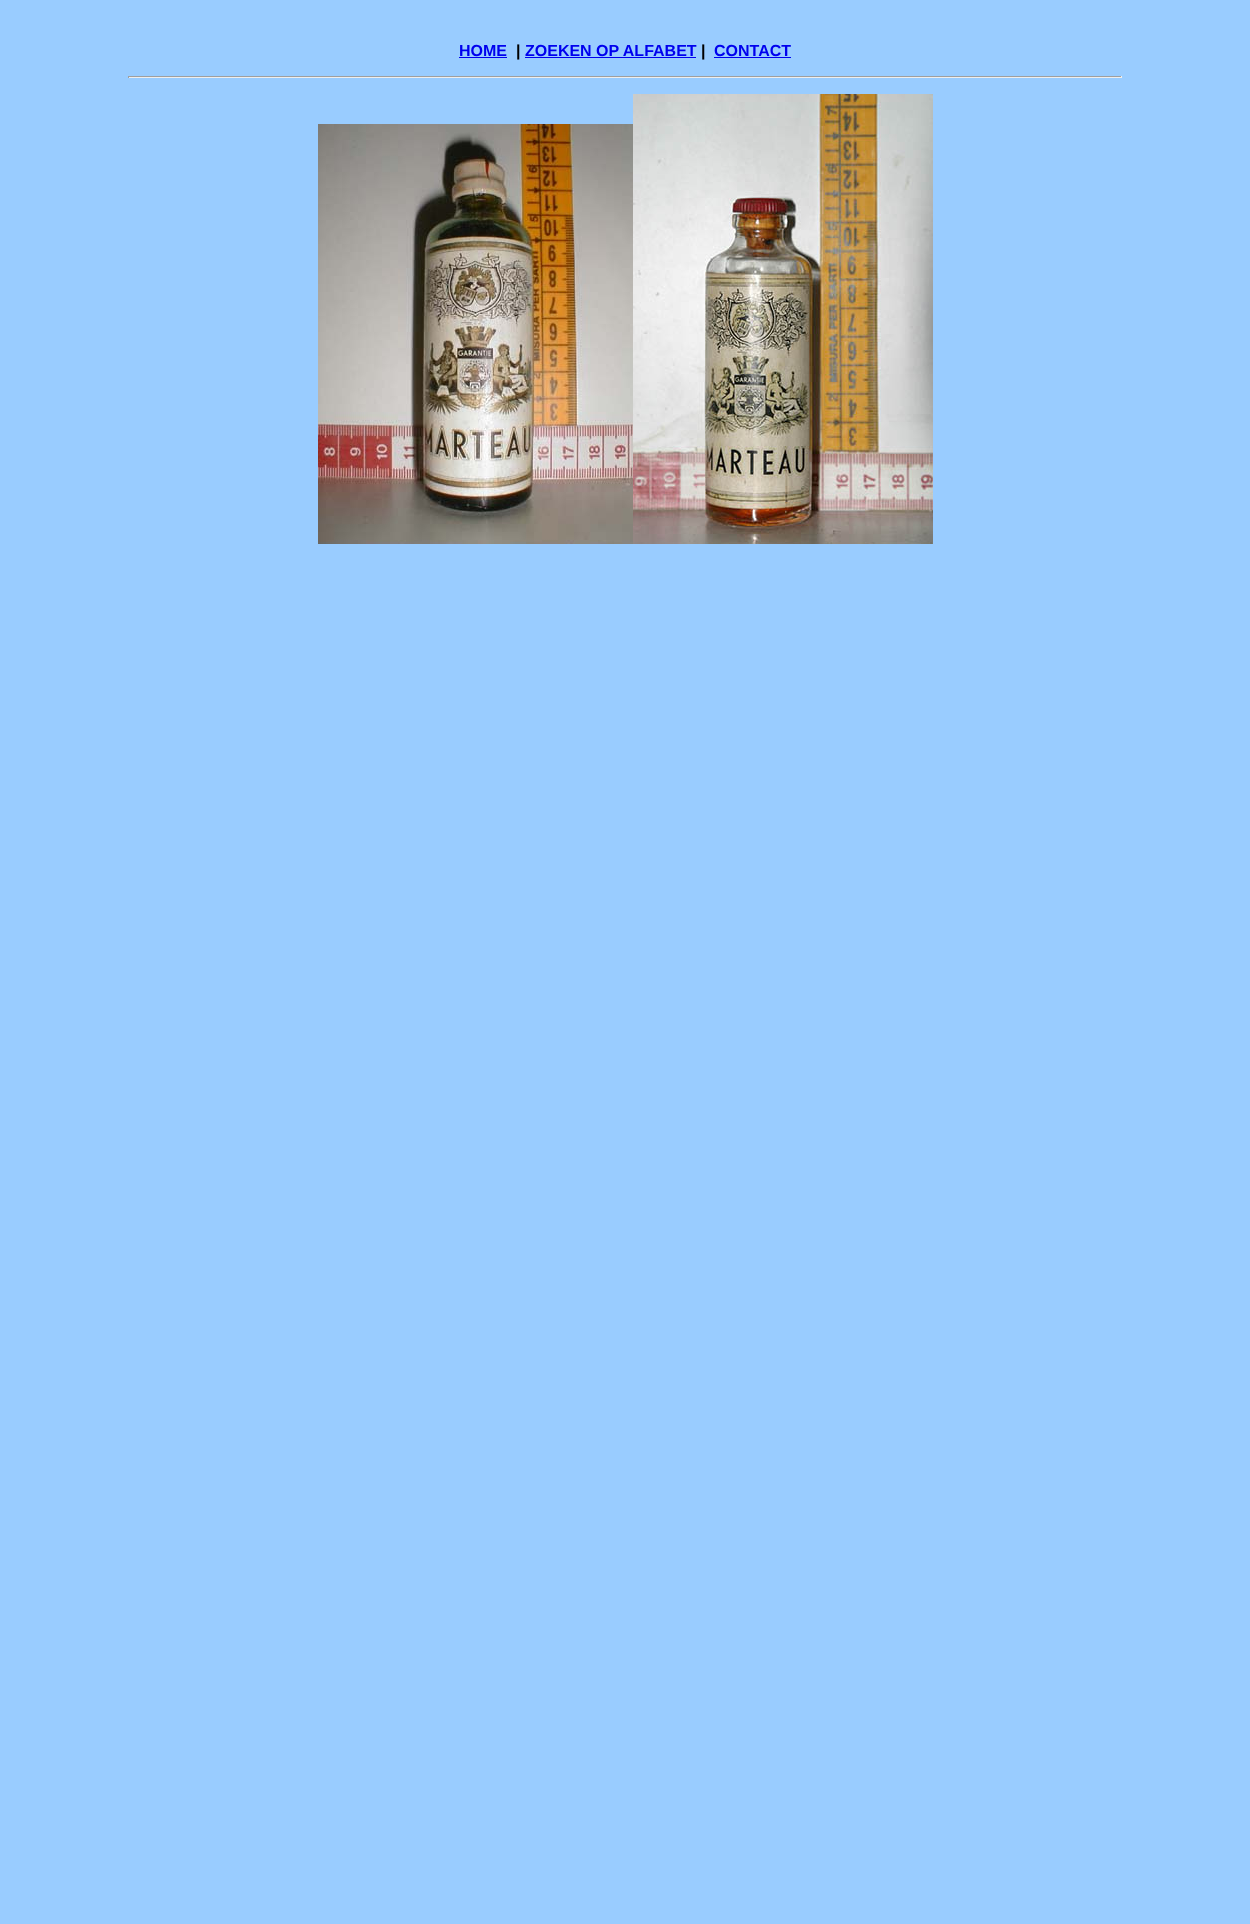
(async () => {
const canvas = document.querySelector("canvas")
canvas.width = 1250
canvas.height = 1924
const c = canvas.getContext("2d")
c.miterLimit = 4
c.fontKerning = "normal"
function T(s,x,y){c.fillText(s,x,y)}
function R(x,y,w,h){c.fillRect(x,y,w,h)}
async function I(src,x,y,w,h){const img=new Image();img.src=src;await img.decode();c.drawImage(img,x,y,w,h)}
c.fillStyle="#9cf"
R(0,0,1250,1924)
c.font="bold 16px Liberation Sans"
c.fillStyle="#00e"
T("HOME",459,56)
R(459,57,48,1)
c.fillStyle="#000"
T("|",516,56)
c.fillStyle="#00e"
T("ZOEKEN OP ALFABET",525,56)
R(525,57,171,1)
c.fillStyle="#000"
T("|",701,56)
c.fillStyle="#00e"
T("CONTACT",714,56)
R(714,57,77,1)
c.fillStyle="#9f9f9f"
R(128,76,994,1)
c.fillStyle="#eee"
R(1121,76,1,2)
R(128,77,994,1)
c.fillStyle="#9f9f9f"
R(128,76,1,2)
await I("1.png",318,124,315,420)
await I("2.png",633,94,300,450)
})()
